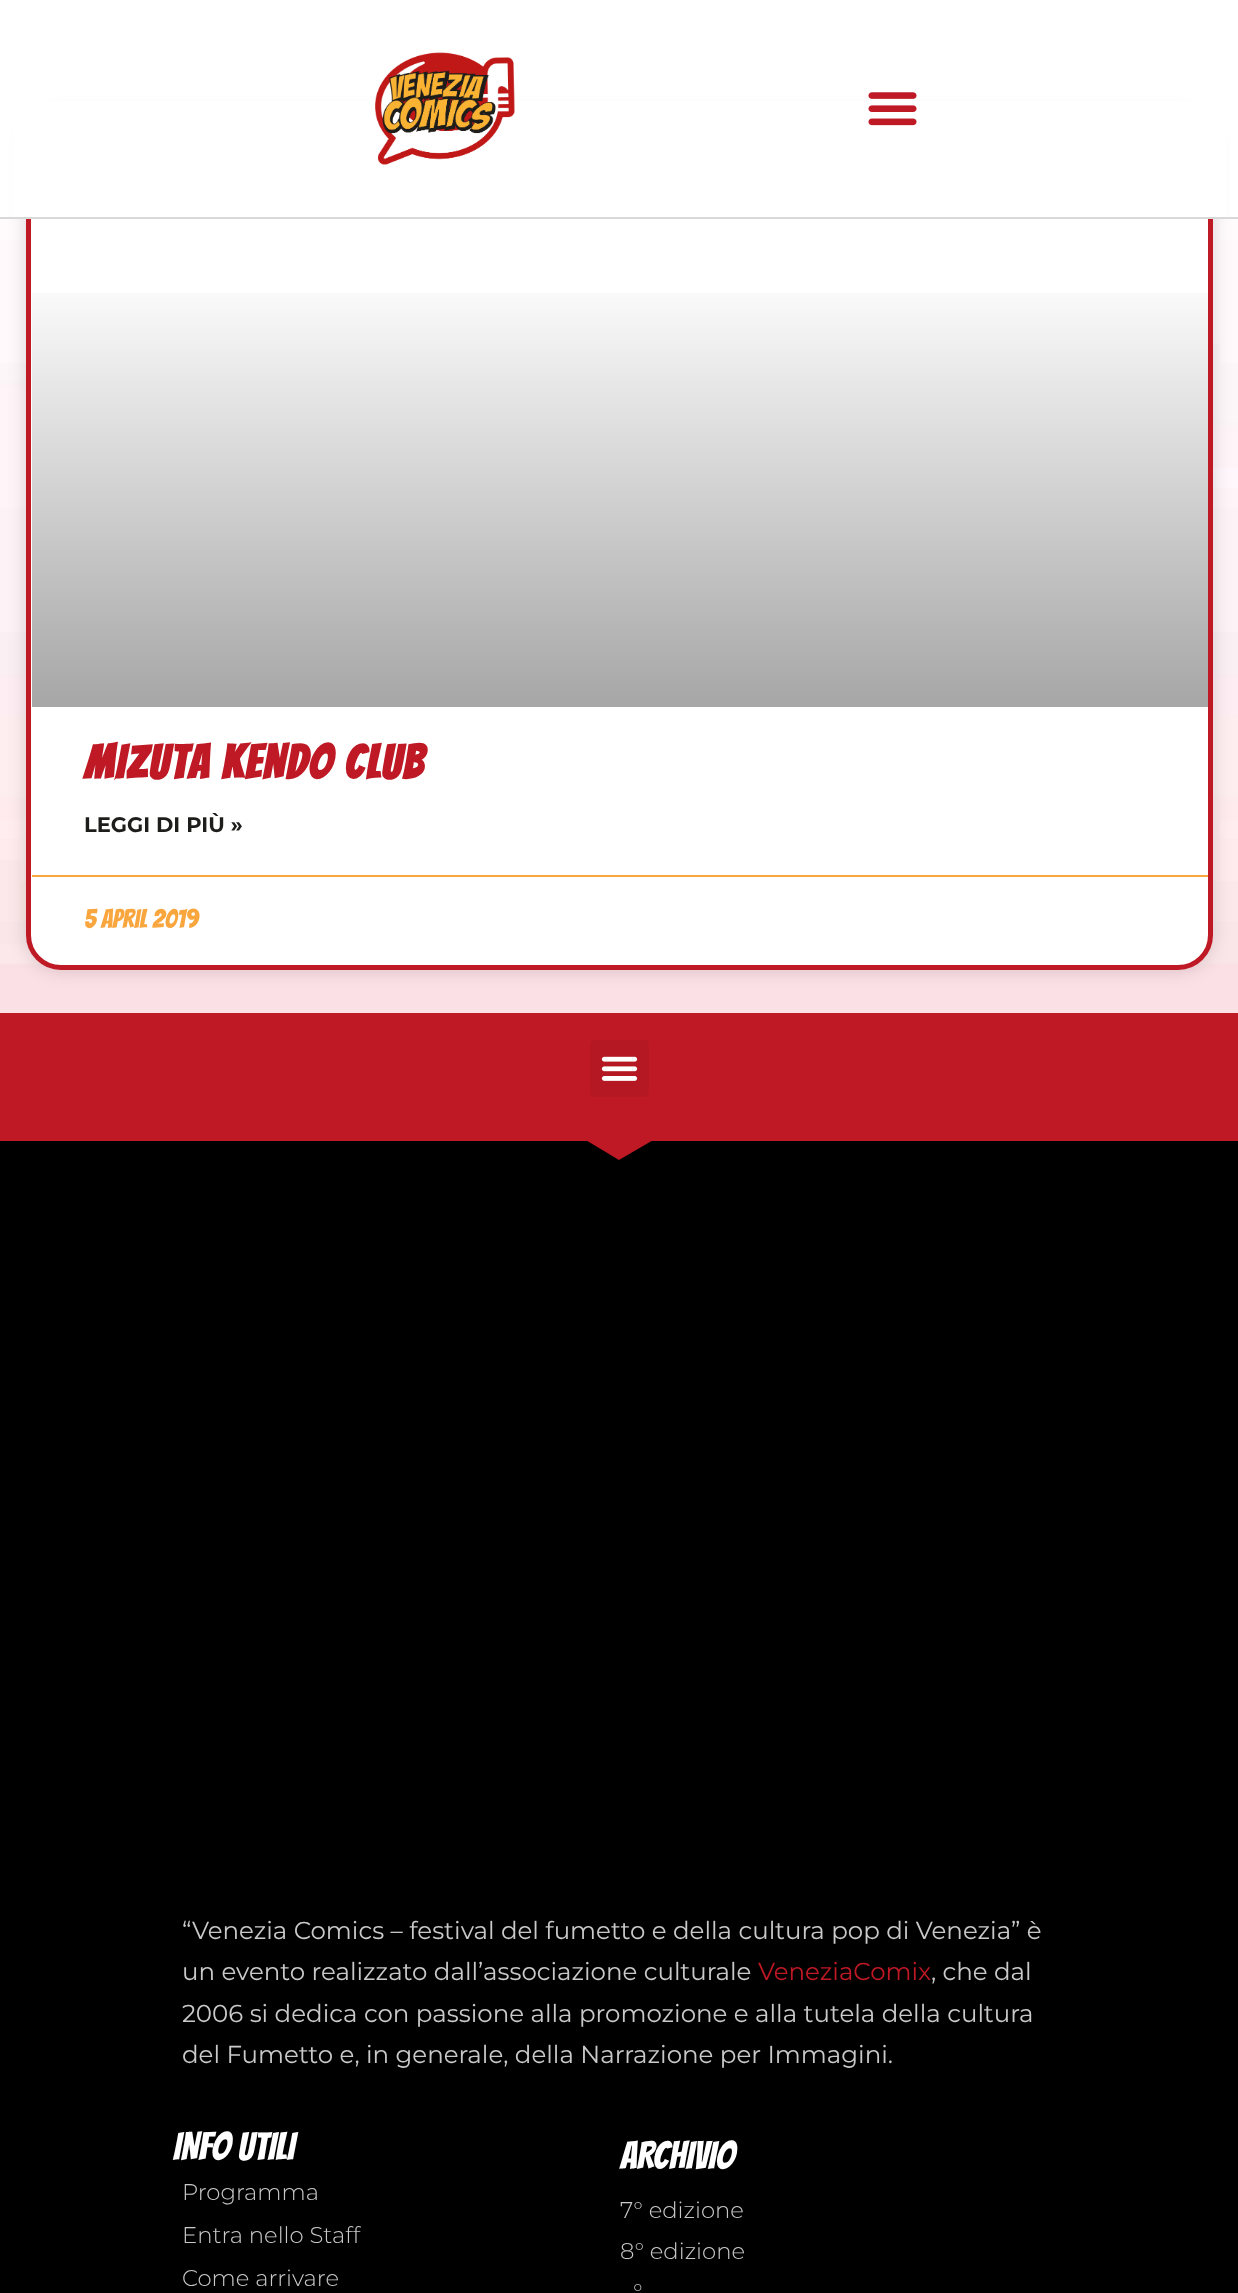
(async () => {
const canvas = document.querySelector("canvas")
canvas.width = 1238
canvas.height = 2293
const c = canvas.getContext("2d")
c.miterLimit = 4
c.fontKerning = "normal"
function T(s,x,y){c.fillText(s,x,y)}
function R(x,y,w,h){c.fillRect(x,y,w,h)}
function Q(x,y,w,h,r){c.beginPath();c.roundRect(x,y,w,h,r);c.fill()}
async function I(src,x,y,w,h){const img=new Image();img.src=src;await img.decode();c.drawImage(img,x,y,w,h)}
let gradient, path
c.fillStyle="#fff"
R(0,0,1238,2293)
await I("3.png",0,219,1238,794)
c.fillStyle="#00000026"
c.filter="blur(9px)"
c.beginPath()
c.roundRect(26,114,1187,856,35)
c.fill()
c.filter="none"
c.fillStyle="#fff"
c.beginPath()
c.roundRect(28.5,116.5,1182,851,32.5)
c.fill()
c.strokeStyle="#be1924"
c.lineWidth=5
c.stroke()
R(13,101,1213,116)
c.fillStyle="#d8d8d8"
R(0,217,1238,2)
await I("1.png",375,52,140,113)
await I("2.png",868,92,49,34)
gradient = c.createLinearGradient(620,707,620,119)
gradient.addColorStop(0,"#00000059")
gradient.addColorStop(.75,"#00000000")
c.fillStyle = gradient
R(32,293,1176,414)
c.letterSpacing="1.75px"
c.font="bold 47.25px Bangers"
c.fillStyle="#be1924"
T("MIZUTA KENDO CLUB",84,779)
c.letterSpacing="0px"
c.font="bold 21px Montserrat"
c.fillStyle="#1d1d1b"
T("LEGGI DI PIÙ »",84,832)
c.fillStyle="#f8a63d"
R(32,875,1176,2)
c.font="26.25px Bangers"
T("5 April 2019",84,928)
c.fillStyle="#be1924"
R(0,1013,1238,128)
c.fillStyle="#b51822"
Q(590,1040,59,57,5)
await I("4.png",601,1056,37,25)
c.fillStyle="#000"
R(0,1141,1238,1152)
c.fillStyle="#be1924"
path = new Path2D("M619 1160l-35-21h71z")
c.fill(path)
c.font="24.5px Montserrat"
c.fillStyle="#c9c9c9"
T("“Venezia Comics – festival del fumetto e della cultura pop di Venezia” è",182,1939)
T("un evento realizzato dall’associazione culturale",182,1980)
c.fillStyle="#be1924"
T("VeneziaComix",758,1980)
c.fillStyle="#c9c9c9"
T(", che dal",931,1980)
T("2006 si dedica con passione alla promozione e alla tutela della cultura",182,2022)
T("del Fumetto e, in generale, della Narrazione per Immagini.",182,2063)
c.font="38.5px Bangers"
c.fillStyle="#fff"
T("INFO UTILI",173,2160)
c.font="300 22.75px Montserrat"
c.fillStyle="#c9c9c9"
T("Programma",182,2200)
T("Entra nello Staff",182,2243)
T("Come arrivare",182,2286)
c.font="38.5px Bangers"
c.fillStyle="#fff"
T("ARCHIVIO",620,2169)
c.font="300 22.75px Montserrat"
c.fillStyle="#c9c9c9"
T("7° edizione",620,2218)
T("8° edizione",620,2259)
T("°",633,2300)
})()
